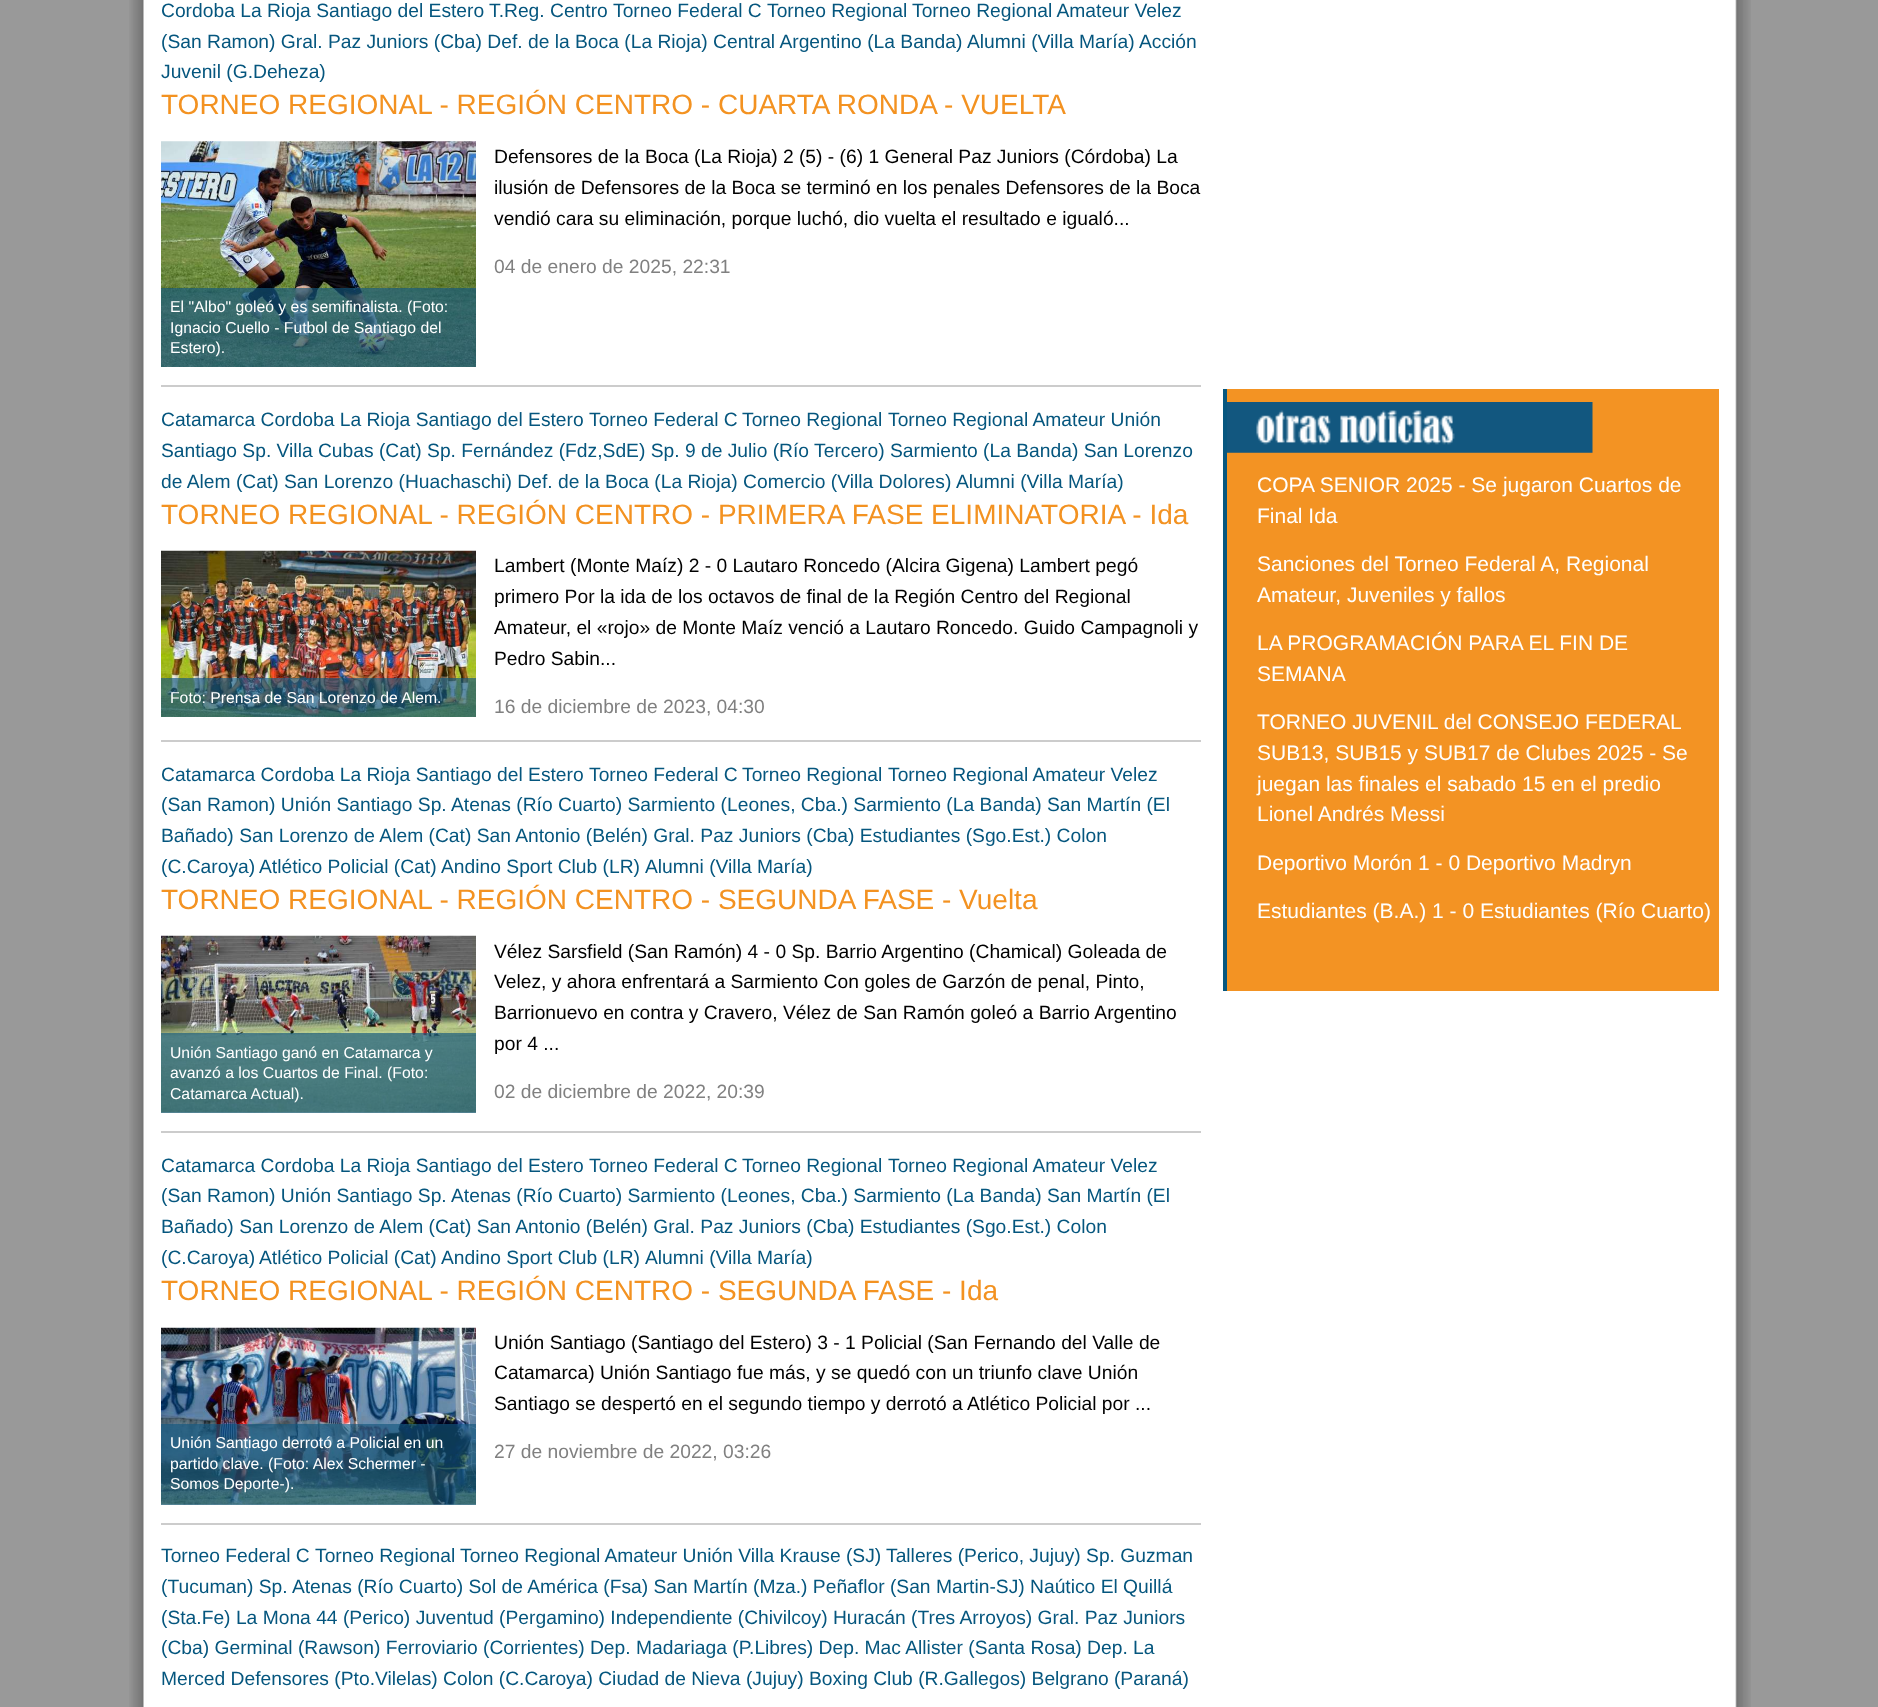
(async () => {
const canvas = document.querySelector("canvas")
canvas.width = 1878
canvas.height = 1707
const c = canvas.getContext("2d")
c.miterLimit = 4
c.fontKerning = "normal"
function T(s,x,y){c.fillText(s,x,y)}
function R(x,y,w,h){c.fillRect(x,y,w,h)}
async function I(src,x,y,w,h){const img=new Image();img.src=src;await img.decode();c.drawImage(img,x,y,w,h)}
c.fillStyle="#999"
R(0,0,1878,1707)
await I("1.png",129,0,1622,1707)
c.font="19.25px Liberation Sans"
c.fillStyle="#05567e"
T("Cordoba La Rioja Santiago del Estero",161,17)
T("T.Reg. Centro",489,17)
T("Torneo Federal C",613,17)
T("Torneo Regional",767,17)
T("Torneo Regional Amateur Velez",912,17)
T("(San Ramon) Gral. Paz Juniors (Cba) Def. de la Boca (La Rioja) Central Argentino (La Banda)",161,48)
T("Alumni (Villa María)",967,48)
T("Acción",1139,48)
T("Juvenil (G.Deheza)",161,78)
c.font="28px Liberation Sans"
c.fillStyle="#f39221"
T("TORNEO REGIONAL - REGIÓN CENTRO - CUARTA RONDA - VUELTA",161,114)
c.font="19.25px Liberation Sans"
c.fillStyle="#000"
T("Defensores de la Boca (La Rioja) 2 (5) - (6) 1 General Paz Juniors (Córdoba) La",494,163)
T("ilusión de Defensores de la Boca se terminó en los penales Defensores de la Boca",494,194)
T("vendió cara su eliminación, porque luchó, dio vuelta el resultado e igualó...",494,225)
c.fillStyle="#808080"
T("04 de enero de 2025, 22:31",494,273)
await I("2.png",161,141,315,226)
c.fillStyle="#125880a6"
R(161,288,315,79)
c.font="15.75px Liberation Sans"
c.fillStyle="#fff"
T("El \"Albo\" goleó y es semifinalista. (Foto:",170,312)
T("Ignacio Cuello - Futbol de Santiago del",170,333)
T("Estero).",170,353)
c.fillStyle="#ccc"
R(161,385,1040,2)
c.font="19.25px Liberation Sans"
c.fillStyle="#05567e"
T("Catamarca Cordoba La Rioja Santiago del Estero",161,426)
T("Torneo Federal C",589,426)
T("Torneo Regional",742,426)
T("Torneo Regional Amateur Unión",888,426)
T("Santiago Sp. Villa Cubas (Cat) Sp. Fernández (Fdz,SdE) Sp. 9 de Julio (Río Tercero) Sarmiento (La Banda) San Lorenzo",161,457)
T("de Alem (Cat) San Lorenzo (Huachaschi) Def. de la Boca (La Rioja) Comercio (Villa Dolores)",161,488)
T("Alumni (Villa María)",956,488)
c.font="28px Liberation Sans"
c.fillStyle="#f39221"
T("TORNEO REGIONAL - REGIÓN CENTRO - PRIMERA FASE ELIMINATORIA - Ida",161,524)
c.font="19.25px Liberation Sans"
c.fillStyle="#000"
T("Lambert (Monte Maíz) 2 - 0 Lautaro Roncedo (Alcira Gigena) Lambert pegó",494,572)
T("primero Por la ida de los octavos de final de la Región Centro del Regional",494,603)
T("Amateur, el «rojo» de Monte Maíz venció a Lautaro Roncedo. Guido Campagnoli y",494,634)
T("Pedro Sabin...",494,665)
await I("3.png",161,550,315,167)
c.fillStyle="#125880a6"
R(161,678,315,39)
c.font="15.75px Liberation Sans"
c.fillStyle="#fff"
T("Foto: Prensa de San Lorenzo de Alem.",170,703)
c.font="19.25px Liberation Sans"
c.fillStyle="#808080"
T("16 de diciembre de 2023, 04:30",494,713)
c.fillStyle="#ccc"
R(161,740,1040,2)
c.fillStyle="#05567e"
T("Catamarca Cordoba La Rioja Santiago del Estero",161,781)
T("Torneo Federal C",589,781)
T("Torneo Regional",742,781)
T("Torneo Regional Amateur Velez",888,781)
T("(San Ramon) Unión Santiago Sp. Atenas (Río Cuarto) Sarmiento (Leones, Cba.) Sarmiento (La Banda) San Martín (El",161,811)
T("Bañado) San Lorenzo de Alem (Cat) San Antonio (Belén) Gral. Paz Juniors (Cba) Estudiantes (Sgo.Est.) Colon",161,842)
T("(C.Caroya)",161,873)
T("Atlético Policial (Cat)",259,873)
T("Andino Sport Club (LR)",441,873)
T("Alumni (Villa María)",645,873)
c.font="28px Liberation Sans"
c.fillStyle="#f39221"
T("TORNEO REGIONAL - REGIÓN CENTRO - SEGUNDA FASE - Vuelta",161,909)
c.font="19.25px Liberation Sans"
c.fillStyle="#000"
T("Vélez Sarsfield (San Ramón) 4 - 0 Sp. Barrio Argentino (Chamical) Goleada de",494,958)
T("Velez, y ahora enfrentará a Sarmiento Con goles de Garzón de penal, Pinto,",494,988)
T("Barrionuevo en contra y Cravero, Vélez de San Ramón goleó a Barrio Argentino",494,1019)
T("por 4 ...",494,1050)
await I("4.png",161,935,315,178)
c.fillStyle="#125880a6"
R(161,1033,315,80)
c.font="15.75px Liberation Sans"
c.fillStyle="#fff"
T("Unión Santiago ganó en Catamarca y",170,1058)
T("avanzó a los Cuartos de Final. (Foto:",170,1078)
T("Catamarca Actual).",170,1099)
c.font="19.25px Liberation Sans"
c.fillStyle="#808080"
T("02 de diciembre de 2022, 20:39",494,1098)
c.fillStyle="#ccc"
R(161,1131,1040,2)
c.fillStyle="#05567e"
T("Catamarca Cordoba La Rioja Santiago del Estero",161,1172)
T("Torneo Federal C",589,1172)
T("Torneo Regional",742,1172)
T("Torneo Regional Amateur Velez",888,1172)
T("(San Ramon) Unión Santiago Sp. Atenas (Río Cuarto) Sarmiento (Leones, Cba.) Sarmiento (La Banda) San Martín (El",161,1202)
T("Bañado) San Lorenzo de Alem (Cat) San Antonio (Belén) Gral. Paz Juniors (Cba) Estudiantes (Sgo.Est.) Colon",161,1233)
T("(C.Caroya)",161,1264)
T("Atlético Policial (Cat)",259,1264)
T("Andino Sport Club (LR)",441,1264)
T("Alumni (Villa María)",645,1264)
c.font="28px Liberation Sans"
c.fillStyle="#f39221"
T("TORNEO REGIONAL - REGIÓN CENTRO - SEGUNDA FASE - Ida",161,1300)
c.font="19.25px Liberation Sans"
c.fillStyle="#000"
T("Unión Santiago (Santiago del Estero) 3 - 1 Policial (San Fernando del Valle de",494,1349)
T("Catamarca) Unión Santiago fue más, y se quedó con un triunfo clave Unión",494,1379)
T("Santiago se despertó en el segundo tiempo y derrotó a Atlético Policial por ...",494,1410)
await I("5.png",161,1327,315,178)
c.fillStyle="#125880a6"
R(161,1424,315,81)
c.font="15.75px Liberation Sans"
c.fillStyle="#fff"
T("Unión Santiago derrotó a Policial en un",170,1448)
T("partido clave. (Foto: Alex Schermer -",170,1469)
T("Somos Deporte-).",170,1489)
c.font="19.25px Liberation Sans"
c.fillStyle="#808080"
T("27 de noviembre de 2022, 03:26",494,1458)
c.fillStyle="#ccc"
R(161,1523,1040,2)
c.fillStyle="#05567e"
T("Torneo Federal C",161,1562)
T("Torneo Regional",315,1562)
T("Torneo Regional Amateur Unión Villa Krause (SJ)",460,1562)
T("Talleres (Perico, Jujuy) Sp. Guzman",886,1562)
T("(Tucuman) Sp. Atenas (Río Cuarto) Sol de América (Fsa) San Martín (Mza.) Peñaflor (San Martin-SJ) Naútico El Quillá",161,1593)
T("(Sta.Fe) La Mona 44 (Perico) Juventud (Pergamino) Independiente (Chivilcoy) Huracán (Tres Arroyos) Gral. Paz Juniors",161,1624)
T("(Cba) Germinal (Rawson) Ferroviario (Corrientes) Dep. Madariaga (P.Libres) Dep. Mac Allister (Santa Rosa) Dep. La",161,1654)
T("Merced Defensores (Pto.Vilelas) Colon (C.Caroya) Ciudad de Nieva (Jujuy) Boxing Club (R.Gallegos) Belgrano (Paraná)",161,1685)
c.fillStyle="#f39323"
R(1227,389,492,602)
c.fillStyle="#07577f"
R(1223,389,4,602)
await I("6.png",1227,402,366,51)
c.font="21px Liberation Sans"
c.fillStyle="#fff"
T("COPA SENIOR 2025 - Se jugaron Cuartos de",1257,492)
T("Final Ida",1257,523)
T("Sanciones del Torneo Federal A, Regional",1257,571)
T("Amateur, Juveniles y fallos",1257,602)
T("LA PROGRAMACIÓN PARA EL FIN DE",1257,650)
T("SEMANA",1257,681)
T("TORNEO JUVENIL del CONSEJO FEDERAL",1257,729)
T("SUB13, SUB15 y SUB17 de Clubes 2025 - Se",1257,760)
T("juegan las finales el sabado 15 en el predio",1257,791)
T("Lionel Andrés Messi",1257,821)
T("Deportivo Morón 1 - 0 Deportivo Madryn",1257,870)
T("Estudiantes (B.A.) 1 - 0 Estudiantes (Río Cuarto)",1257,918)
})()
